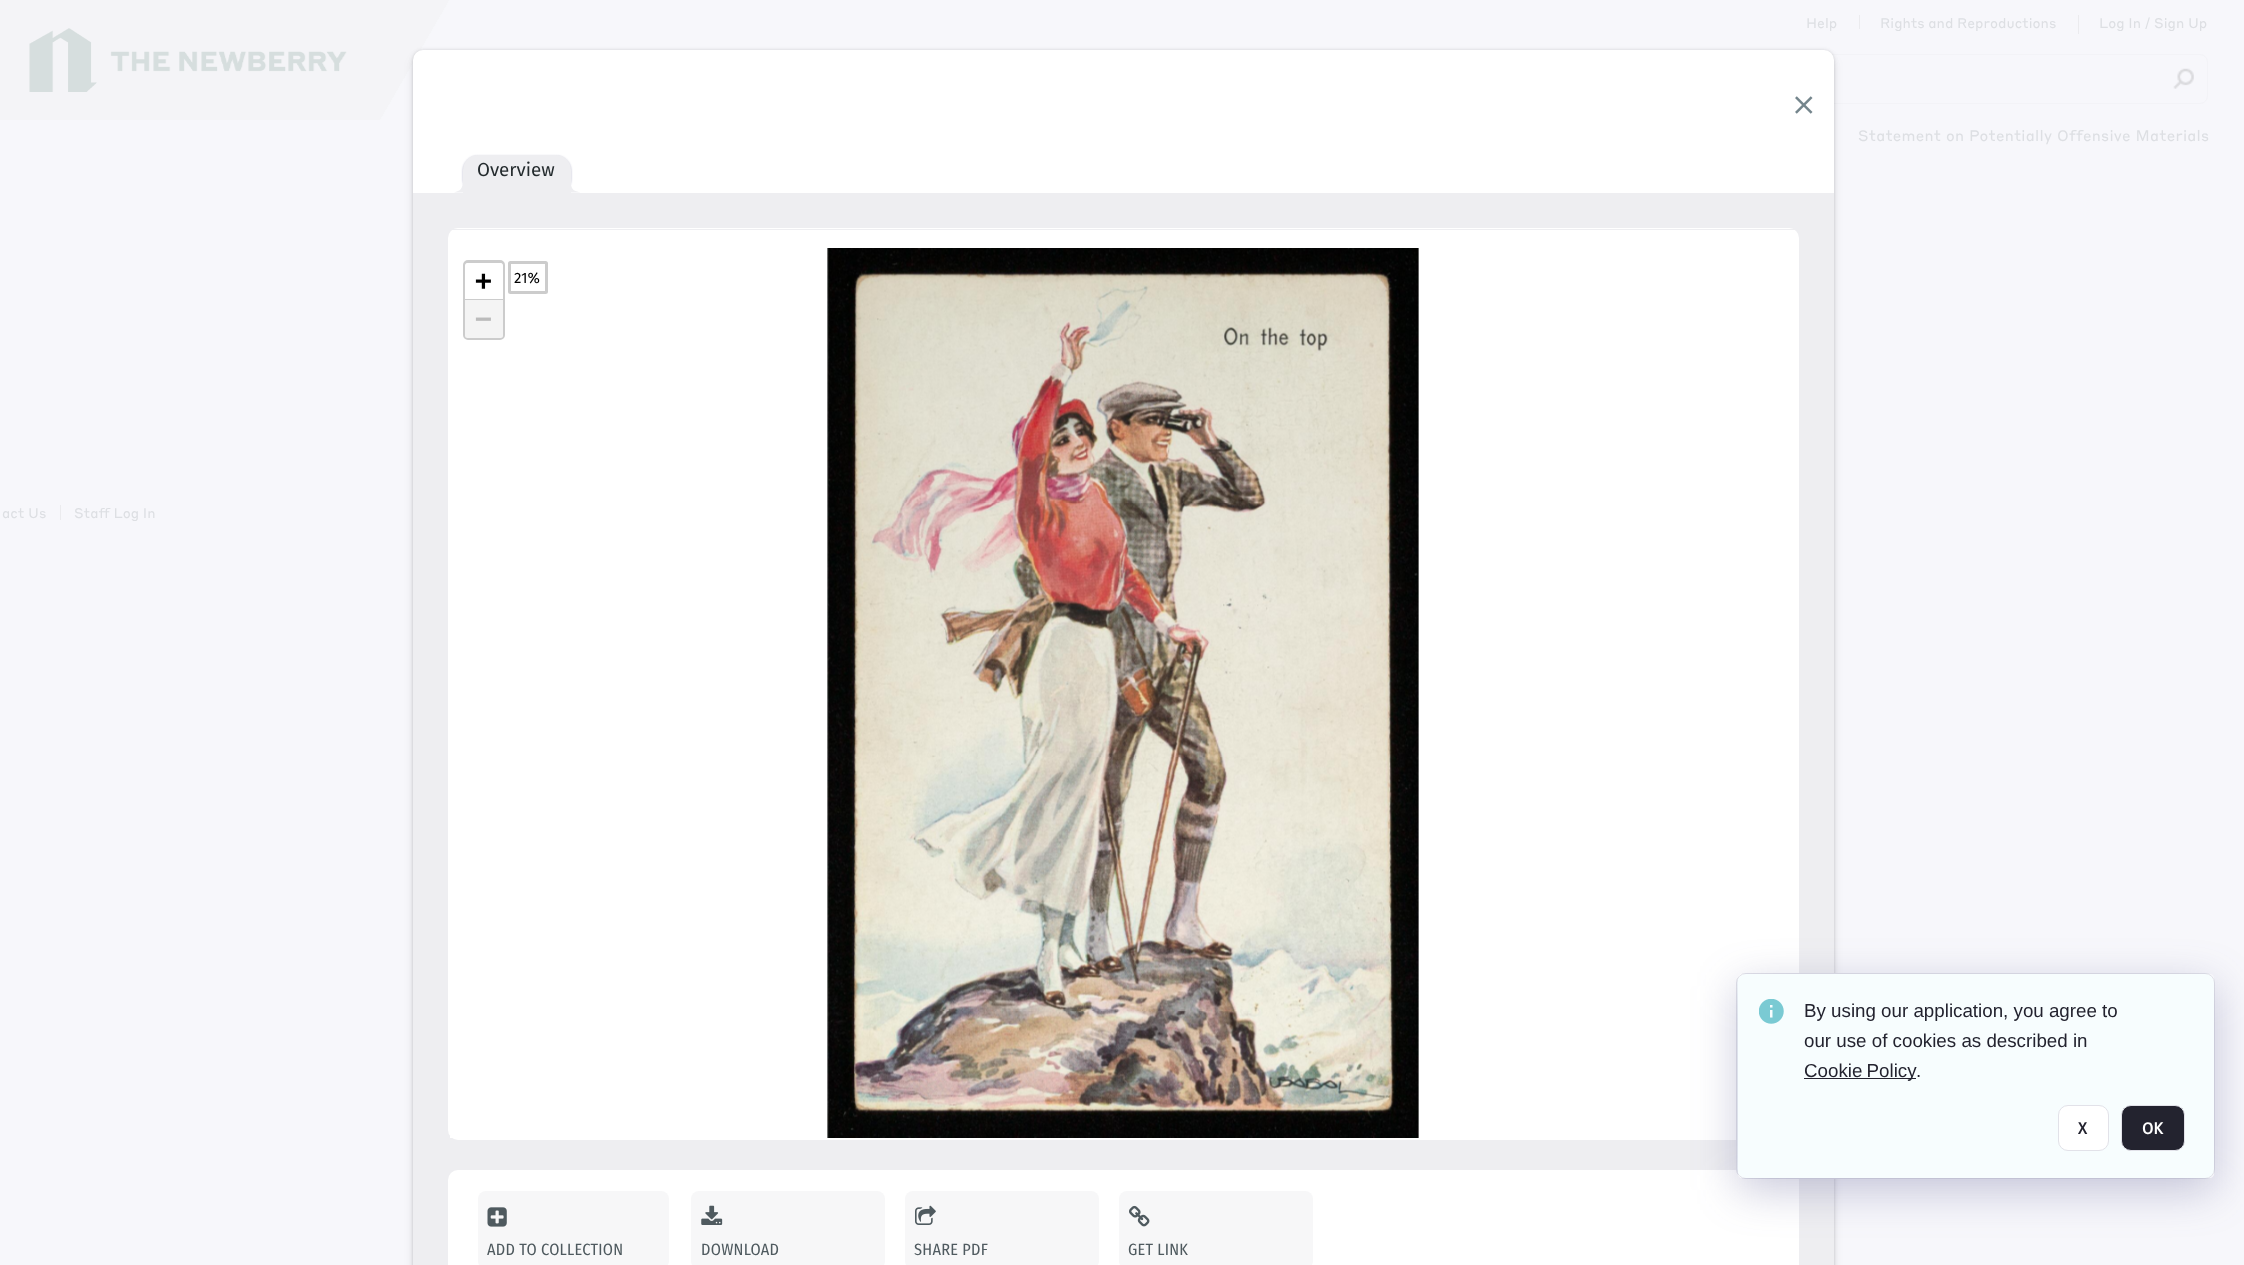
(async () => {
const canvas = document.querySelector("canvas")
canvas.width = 2244
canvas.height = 1265
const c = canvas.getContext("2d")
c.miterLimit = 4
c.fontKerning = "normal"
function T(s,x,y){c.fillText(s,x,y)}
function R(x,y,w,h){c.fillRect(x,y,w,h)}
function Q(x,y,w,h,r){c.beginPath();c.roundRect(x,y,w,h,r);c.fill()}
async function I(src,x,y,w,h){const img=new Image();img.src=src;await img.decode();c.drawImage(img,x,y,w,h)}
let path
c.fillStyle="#f7f7fb"
R(0,0,2244,1265)
await I("1.png",0,0,450,120)
c.font="13.75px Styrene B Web"
c.fillStyle="#dddfe3"
T("Help",1806,28)
c.fillStyle="#ebebee"
R(1859,15,1,14)
c.fillStyle="#dddfe3"
T("Rights and Reproductions",1880,28)
c.fillStyle="#ebebee"
R(2078,15,1,19)
c.fillStyle="#dddfe3"
T("Log In / Sign Up",2099,28)
c.beginPath()
c.roundRect(1708.5,54.5,499,49,7.5)
c.strokeStyle="#f3f3f7"
c.stroke()
await I("2.png",2173,68,21,21)
c.letterSpacing="0.25px"
c.wordSpacing="0.5px"
c.font="15px Styrene B Web"
T("Statement on Potentially Offensive Materials",1858,141)
c.letterSpacing="0px"
c.wordSpacing="0px"
c.font="13.75px Styrene B Web"
T("act Us",2,518)
c.fillStyle="#ebebee"
R(60,505,1,15)
c.fillStyle="#dddfe3"
T("Staff Log In",74,518)
c.fillStyle="#0000000f"
c.filter="blur(1px)"
c.beginPath()
c.roundRect(413,50,1421,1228,10)
c.fill()
c.filter="none"
c.fillStyle="#00000014"
c.filter="blur(2px)"
c.beginPath()
c.roundRect(413,50,1421,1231,10)
c.fill()
c.filter="none"
c.fillStyle="#0000000f"
c.filter="blur(5.5px)"
c.beginPath()
c.roundRect(413,56,1421,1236,10)
c.fill()
c.filter="none"
c.filter="blur(3px)"
c.beginPath()
c.roundRect(413,54,1421,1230,10)
c.fill()
c.filter="none"
c.fillStyle="#fff"
c.beginPath()
c.roundRect(413,50,1421,1215,[10,10,0,0])
c.fill()
await I("3.png",1795,96,18,18)
c.fillStyle="#6f6f9d80"
c.filter="blur(1px)"
c.beginPath()
c.roundRect(463,156,108,38,15)
c.fill()
c.filter="none"
c.fillStyle="#eeeef1"
c.beginPath()
c.roundRect(463,155,108,38,[15,15,0,0])
c.fill()
path = new Path2D("M462.5 185.5l-1 2.5l-1.5 2l-2 1l-4 1.5h9v-9.5z")
c.fill(path)
path = new Path2D("M571 185.5l1 2.5l1.5 2l2 1l5 1.5h-9.5v-8z")
c.fill(path)
c.font="18.75px Fira Sans"
c.fillStyle="#242b2e"
T("Overview",477,176)
c.fillStyle="#eeeef1"
R(413,193,1421,1072)
c.fillStyle="#fff"
Q(448,228,1351,912,10)
c.fillStyle="#eeeef1"
R(448,229,1351,1)
c.fillStyle="#fff"
R(450,1136,1346,2)
c.beginPath()
c.roundRect(464.5,261.5,39,77,3.5)
c.strokeStyle="#ccc"
c.lineWidth=3
c.stroke()
c.beginPath()
c.roundRect(465,263,38,37,[2.5,2.5,0,0])
c.fill()
c.fillStyle="#ccc"
R(465,299,38,1)
c.font="bold 28px DejaVu Sans Mono"
c.fillStyle="#000"
T("+",475,290)
c.fillStyle="#f4f4f4"
c.beginPath()
c.roundRect(465,300,38,38,[0,0,2.5,2.5])
c.fill()
c.fillStyle="#bbb"
T("−",475,328)
await I("4.png",827,248,592,890)
c.beginPath()
c.roundRect(509.5,262.5,37,30,1)
c.stroke()
c.font="15px Fira Sans"
c.fillStyle="#000"
T("21%",514,283)
c.fillStyle="#fff"
c.beginPath()
c.roundRect(448,1170,1351,95,[10,10,0,0])
c.fill()
c.fillStyle="#f7f7f8"
Q(478,1191,191,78,8)
await I("5.png",487,1207,20,20)
c.letterSpacing="0.25px"
c.font="16.25px Fira Sans Condensed"
c.fillStyle="#4f5a5f"
T("ADD TO COLLECTION",487,1255)
c.fillStyle="#f7f7f8"
Q(691,1191,194,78,8)
await I("6.png",701,1205,22,20)
c.fillStyle="#4f5a5f"
T("DOWNLOAD",701,1255)
c.fillStyle="#f7f7f8"
Q(905,1191,194,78,8)
await I("7.png",915,1205,21,20)
c.fillStyle="#4f5a5f"
T("SHARE PDF",914,1255)
c.fillStyle="#f7f7f8"
Q(1119,1191,194,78,8)
await I("8.png",1129,1205,21,22)
c.fillStyle="#4f5a5f"
T("GET LINK",1128,1255)
c.fillStyle="#f7fdfe"
c.beginPath()
c.roundRect(1736.5,973.5,478,205,9.5)
c.fill()
c.strokeStyle="#e2e2e9"
c.lineWidth=1
c.stroke()
c.save()
path = new Path2D("M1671 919h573v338h-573zm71 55h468c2 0 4 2 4 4v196c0 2-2 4-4 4h-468c-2 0-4-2-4-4v-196c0-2 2-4 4-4z")
c.clip(path,"evenodd")
c.fillStyle="#4d4d874d"
c.filter="blur(22px)"
c.beginPath()
c.roundRect(1738,986,476,204,4)
c.fill()
c.filter="none"
c.restore()
await I("9.png",1759,999,25,25)
c.letterSpacing="0px"
c.font="18.75px Liberation Sans"
c.fillStyle="#23232f"
T("By using our application, you agree to",1804,1017)
T("our use of cookies as described in",1804,1047)
R(1804,1078,112,1)
c.wordSpacing="-1px"
T("Cookie Policy",1804,1077)
c.wordSpacing="0px"
T(".",1916,1077)
c.fillStyle="#fff"
c.beginPath()
c.roundRect(2058.5,1105.5,50,45,9.5)
c.fill()
c.stroke()
c.font="bold 16.25px Fira Sans"
c.fillStyle="#23232f"
T("X",2078,1134)
c.beginPath()
c.roundRect(2121.5,1105.5,63,45,9.5)
c.fill()
c.stroke()
c.fillStyle="#fff"
T("OK",2142,1134)
})()
